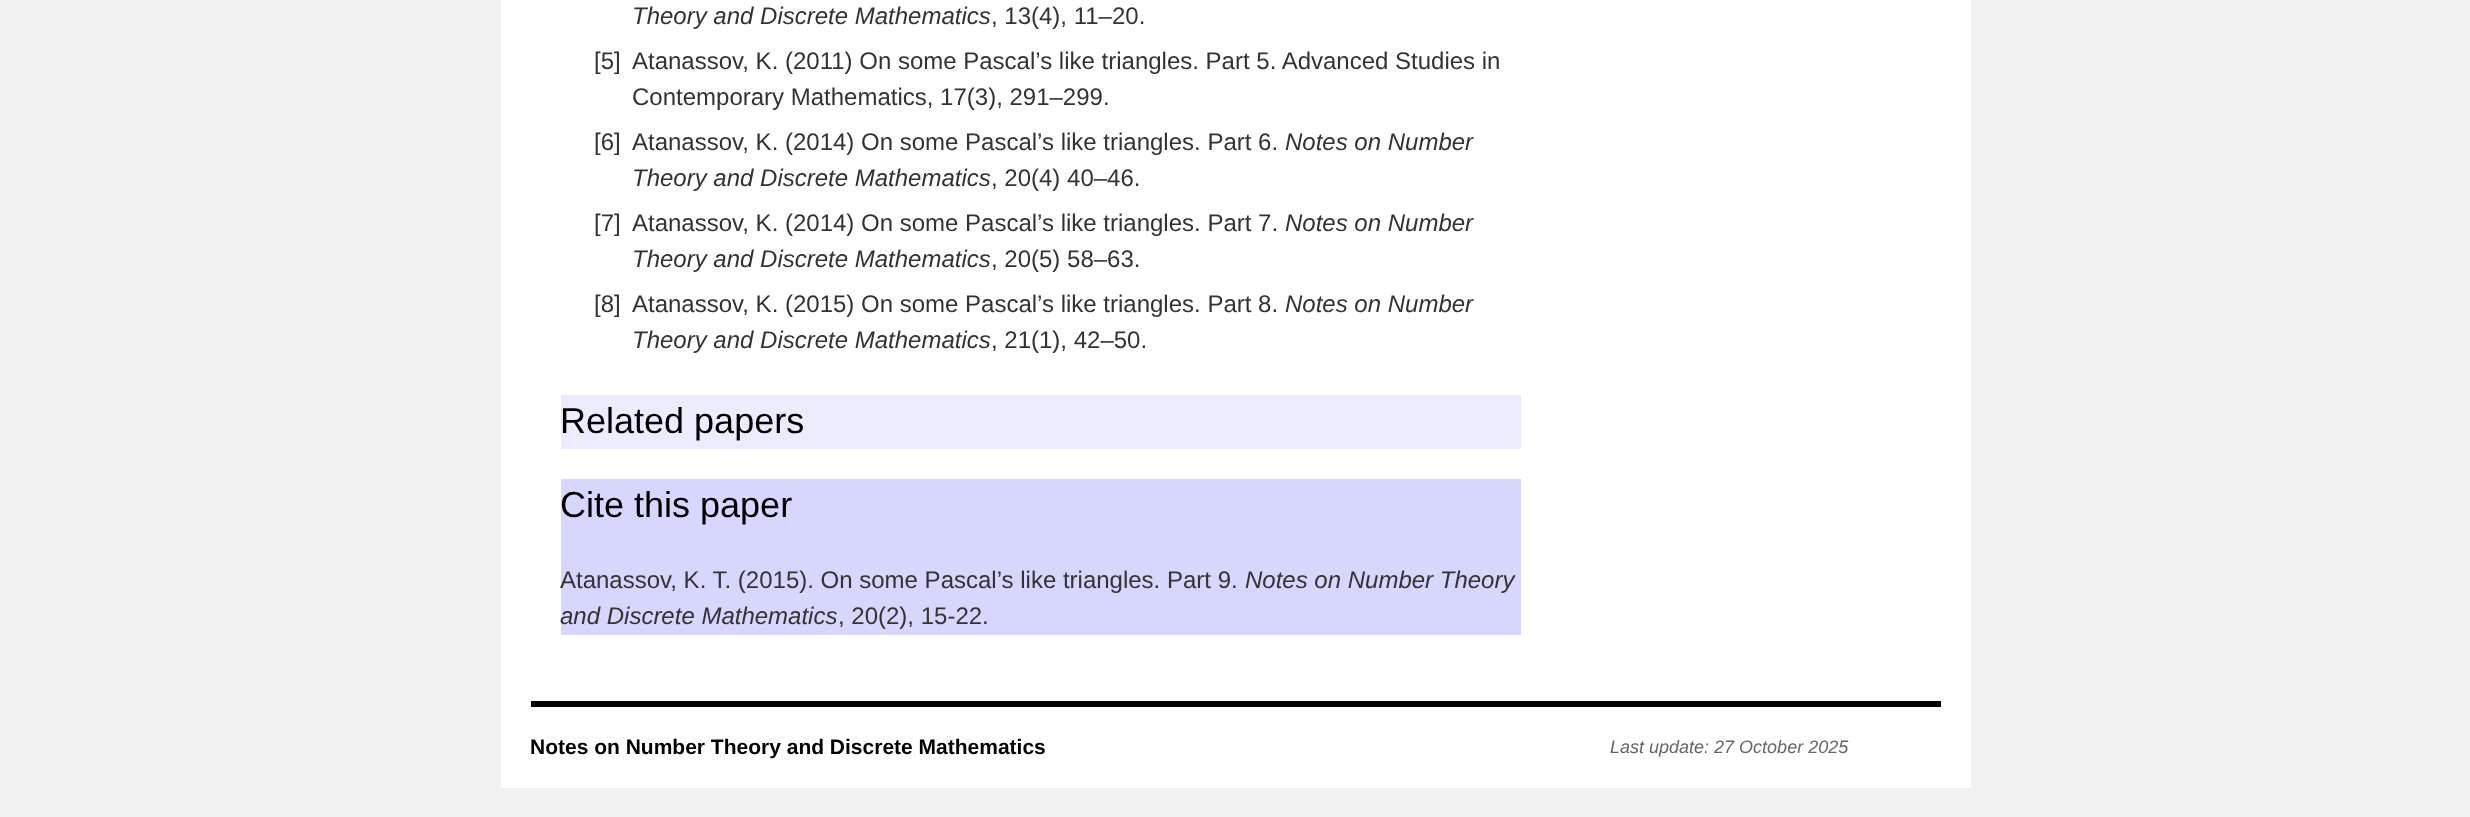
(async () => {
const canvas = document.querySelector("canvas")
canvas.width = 2470
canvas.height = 817
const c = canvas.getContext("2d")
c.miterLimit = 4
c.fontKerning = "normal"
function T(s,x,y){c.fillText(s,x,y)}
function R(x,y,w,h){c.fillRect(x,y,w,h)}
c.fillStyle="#f1f1f1"
R(0,0,2470,817)
c.fillStyle="#fff"
R(501,0,1470,788)
c.font="italic 24px Liberation Sans"
c.fillStyle="#333"
T("Theory and Discrete Mathematics",632,24)
c.font="24px Liberation Sans"
T(", 13(4), 11–20.",991,24)
T("[5]",594,69)
T("Atanassov, K. (2011) On some Pascal’s like triangles. Part 5. Advanced Studies in",632,69)
T("Contemporary Mathematics, 17(3), 291–299.",632,105)
T("[6]",594,150)
T("Atanassov, K. (2014) On some Pascal’s like triangles. Part 6.",632,150)
c.font="italic 24px Liberation Sans"
T("Notes on Number",1285,150)
T("Theory and Discrete Mathematics",632,186)
c.font="24px Liberation Sans"
T(", 20(4) 40–46.",991,186)
T("[7]",594,231)
T("Atanassov, K. (2014) On some Pascal’s like triangles. Part 7.",632,231)
c.font="italic 24px Liberation Sans"
T("Notes on Number",1285,231)
T("Theory and Discrete Mathematics",632,267)
c.font="24px Liberation Sans"
T(", 20(5) 58–63.",991,267)
T("[8]",594,312)
T("Atanassov, K. (2015) On some Pascal’s like triangles. Part 8.",632,312)
c.font="italic 24px Liberation Sans"
T("Notes on Number",1285,312)
T("Theory and Discrete Mathematics",632,348)
c.font="24px Liberation Sans"
T(", 21(1), 42–50.",991,348)
c.fillStyle="#ececfe"
R(561,395,960,54)
c.font="36px Liberation Sans"
c.fillStyle="#000"
T("Related papers",560,433)
c.fillStyle="#d6d6fe"
R(561,479,960,156)
c.fillStyle="#000"
T("Cite this paper",560,517)
c.font="24px Liberation Sans"
c.fillStyle="#333"
T("Atanassov, K. T. (2015). On some Pascal’s like triangles. Part 9.",560,588)
c.font="italic 24px Liberation Sans"
T("Notes on Number Theory",1245,588)
T("and Discrete Mathematics",560,624)
c.font="24px Liberation Sans"
T(", 20(2), 15-22.",838,624)
c.fillStyle="#000"
R(531,701,1410,6)
c.font="bold 21px Liberation Sans"
T("Notes on Number Theory and Discrete Mathematics",530,754)
c.font="italic 18px Liberation Sans"
c.fillStyle="#666"
T("Last update: 27 October 2025",1610,753)
})()
